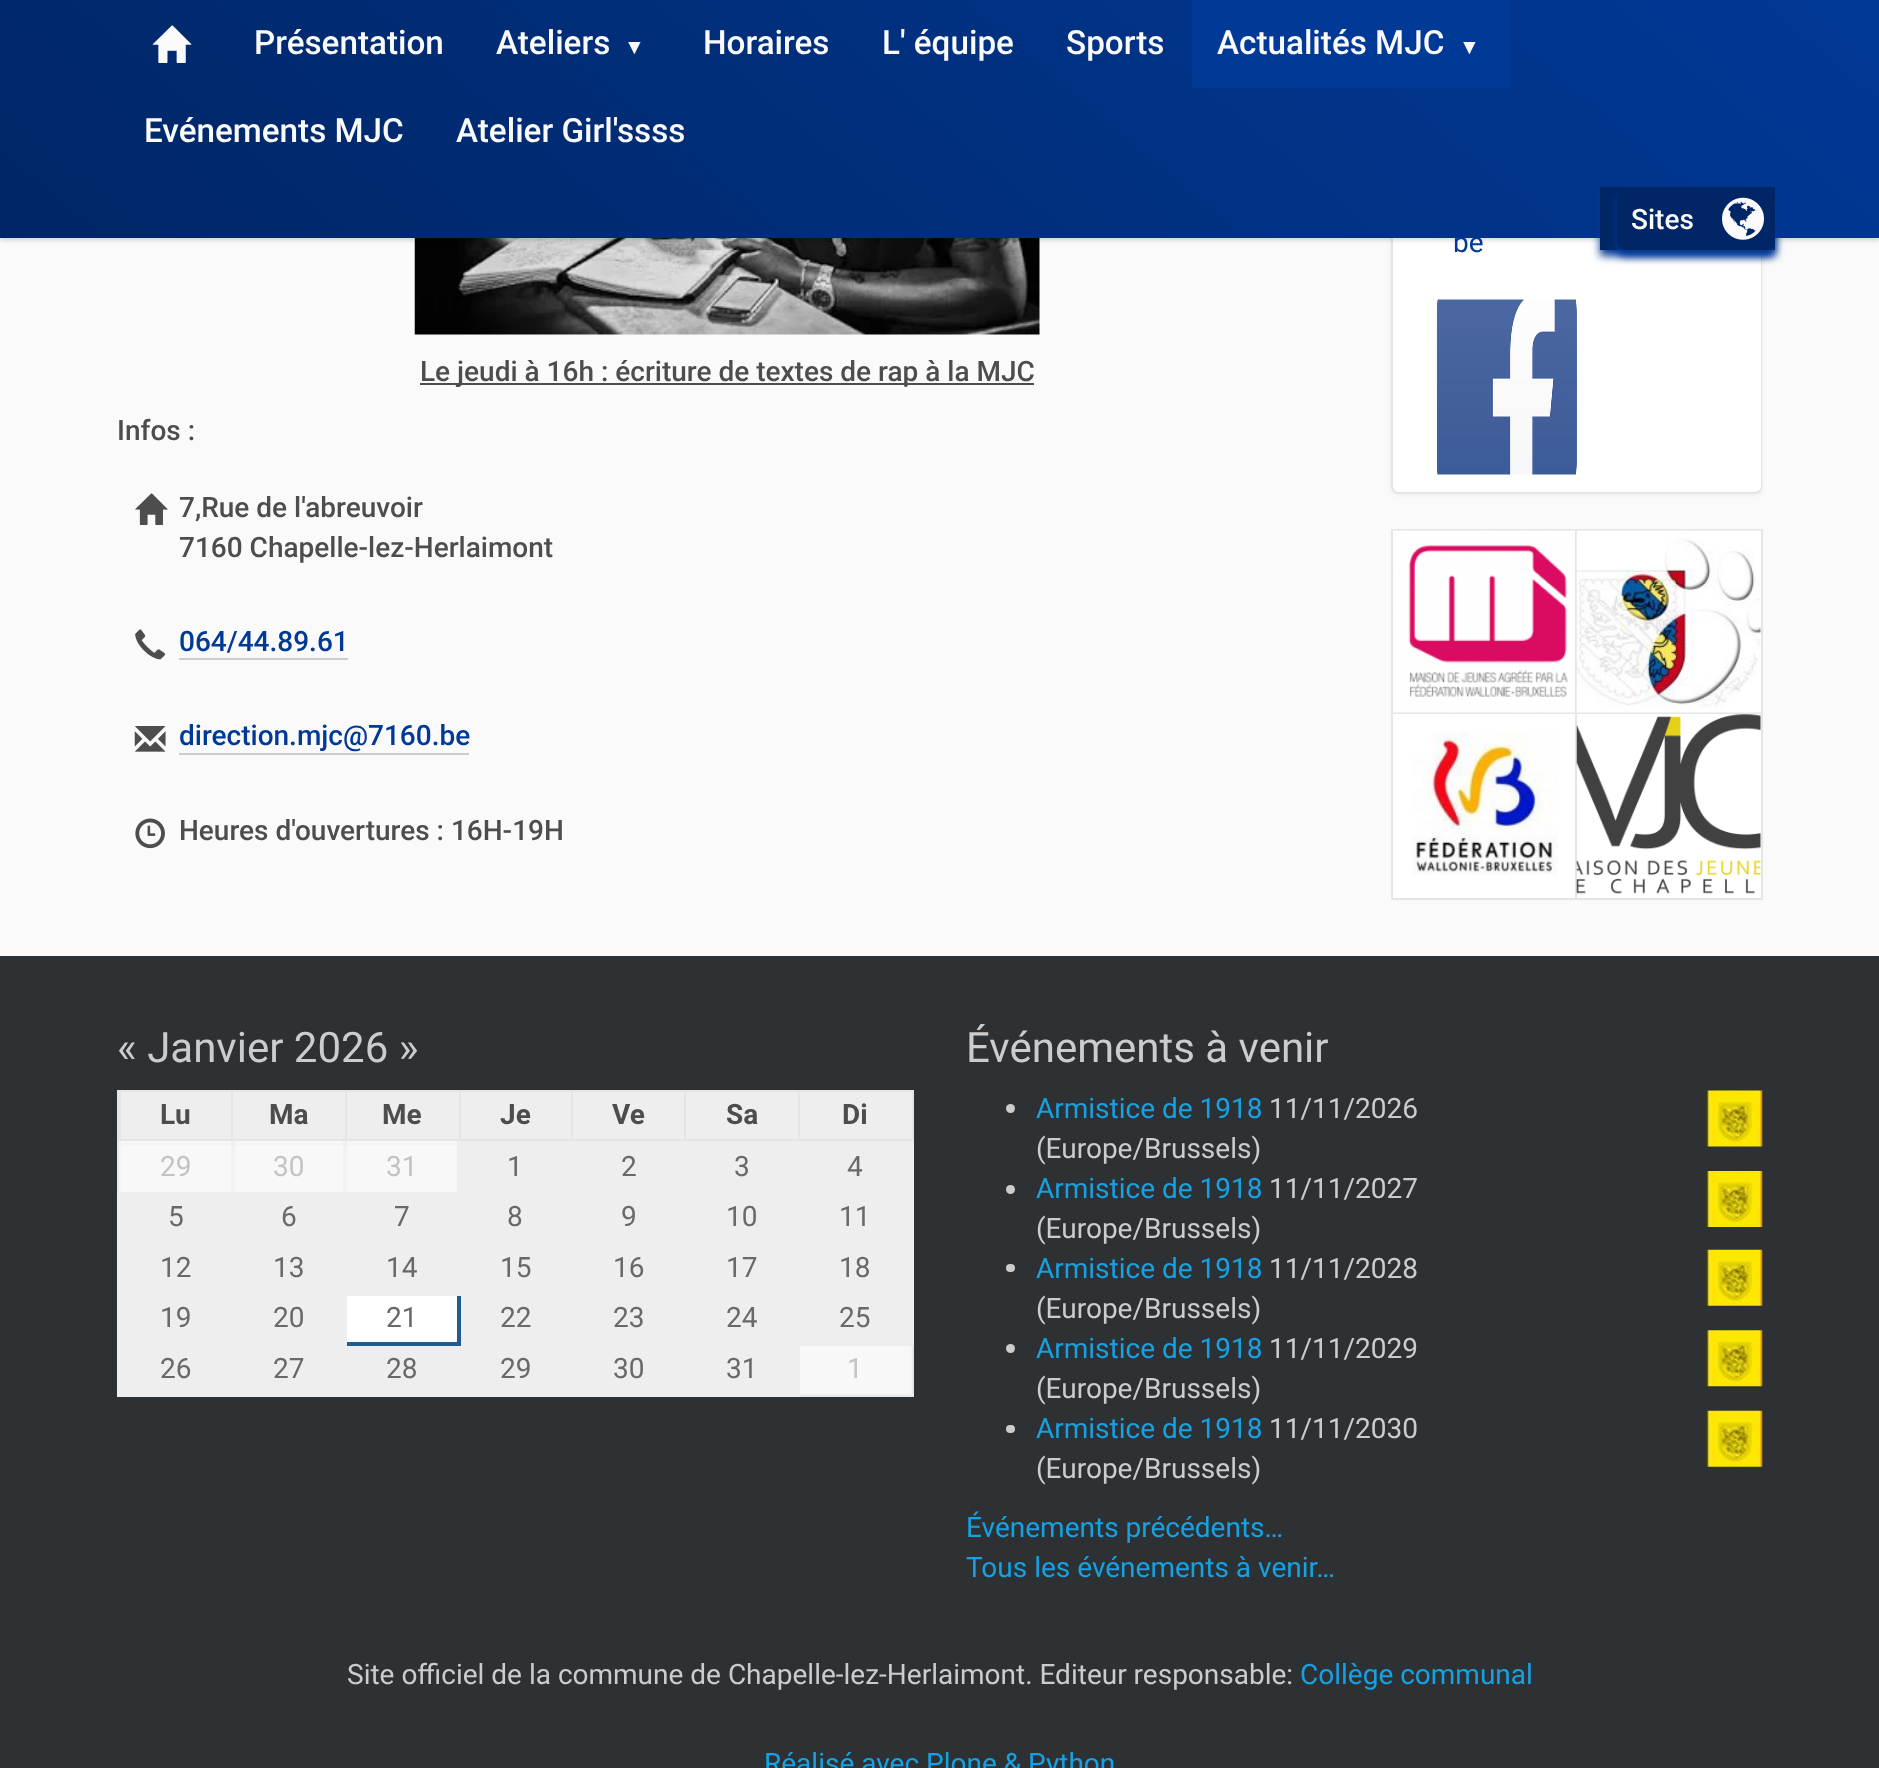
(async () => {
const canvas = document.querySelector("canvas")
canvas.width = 1879
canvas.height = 1768
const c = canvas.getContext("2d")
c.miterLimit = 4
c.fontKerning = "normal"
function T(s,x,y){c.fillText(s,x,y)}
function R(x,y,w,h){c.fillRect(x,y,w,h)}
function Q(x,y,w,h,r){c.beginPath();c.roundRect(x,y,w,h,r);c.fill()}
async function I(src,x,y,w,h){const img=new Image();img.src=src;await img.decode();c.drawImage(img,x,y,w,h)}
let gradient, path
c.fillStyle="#fafafa"
R(0,0,1879,1768)
c.fillStyle="#0000000d"
c.filter="blur(2.5px)"
c.beginPath()
c.roundRect(1391,-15,371,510,7)
c.fill()
c.filter="none"
c.beginPath()
c.roundRect(1392,-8,369,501,6)
c.strokeStyle="#e5e5e5"
c.lineWidth=2
c.stroke()
c.fillStyle="#fff"
path = new Path2D("M1393-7h368v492c0 4-3 7-7 7h-354c-4 0-7-3-7-7z")
c.fill(path)
await I("8.png",414,238,626,97)
c.fillStyle="#0000002b"
c.filter="blur(2.5px)"
c.beginPath()
c.rect(0,2,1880,238)
c.fill()
c.filter="none"
c.font="28px Roboto"
c.fillStyle="#013997"
T("be",1453,252)
gradient = c.createLinearGradient(493,652,1387,-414)
gradient.addColorStop(0,"#002665")
gradient.addColorStop(1,"#013997")
c.fillStyle = gradient
R(0,0,1879,238)
await I("1.png",152,25,40,38)
c.font="500 33.25px Roboto"
c.fillStyle="#fafafa"
T("Présentation",254,54)
T("Ateliers",496,54)
c.font="bold 21px Liberation Sans"
T("▼",624,54)
c.font="500 33.25px Roboto"
T("Horaires",703,54)
T("L' équipe",882,54)
T("Sports",1066,54)
c.fillStyle="#013997"
R(1192,0,318,88)
c.fillStyle="#fafafa"
T("Actualités MJC",1217,54)
c.font="bold 21px Liberation Sans"
T("▼",1459,54)
c.font="500 33.25px Roboto"
T("Evénements MJC",144,142)
T("Atelier Girl'ssss",456,142)
c.fillStyle="#013997"
c.filter="blur(4.5px)"
c.beginPath()
c.rect(1600,193,175,63)
c.fill()
c.filter="none"
c.fillStyle="#002665"
R(1600,187,175,63)
c.fillStyle="#013997"
c.filter="blur(4.5px)"
c.beginPath()
c.roundRect(1617,193,158,63,7)
c.fill()
c.filter="none"
c.fillStyle="#002665"
Q(1617,187,158,63,7)
c.font="500 28px Roboto"
c.fillStyle="#fafafa"
T("Sites",1631,229)
await I("2.png",1722,197,42,43)
await I("3.png",1436,299,141,176)
c.fillStyle="#fff"
Q(1391,529,371,371,7)
c.fillStyle="#e5e5e5"
R(1391,529,371,2)
R(1761,529,2,371)
R(1391,898,371,2)
R(1391,529,2,371)
R(1575,712,187,2)
R(1575,712,2,188)
R(1391,712,186,2)
await I("4.png",1393,530,182,183)
R(1575,529,2,185)
await I("5.png",1576,530,185,183)
await I("6.png",1412,731,146,144)
await I("7.png",1576,714,185,180)
c.fillStyle="#4d4d4d"
R(420,383,614,2)
T("Le jeudi à 16h : écriture de textes de rap à la MJC",420,381)
T("Infos :",117,440)
await I("9.png",135,493,33,32)
T("7,Rue de l'abreuvoir",179,517)
T("7160 Chapelle-lez-Herlaimont",179,557)
await I("10.png",135,629,31,31)
c.fillStyle="#013997"
T("064/44.89.61",179,651)
c.fillStyle="#ccc"
R(179,658,169,2)
await I("11.png",134,726,32,26)
c.fillStyle="#013997"
T("direction.mjc@7160.be",179,745)
c.fillStyle="#ccc"
R(179,753,290,2)
await I("12.png",135,818,30,31)
c.fillStyle="#4d4d4d"
T("Heures d'ouvertures : 16H-19H",179,840)
c.fillStyle="#2e3133"
R(0,956,1879,812)
c.font="42px Roboto"
c.fillStyle="#ccc"
T("« Janvier 2026 »",117,1062)
c.fillStyle="#fff"
R(347,1296,565,99)
c.fillStyle="#f8f8f8"
R(347,1145,110,47)
R(235,1145,108,47)
R(121,1145,110,47)
c.fillStyle="#f4f4f4"
R(119,1143,2,51)
c.fillStyle="#f8f8f8"
R(117,1141,343,2)
c.fillStyle="#f4f4f4"
R(119,1143,114,2)
R(117,1141,4,2)
c.fillStyle="#f2f2f2"
R(231,1143,4,51)
c.fillStyle="#f4f4f4"
R(233,1143,112,2)
c.fillStyle="#f0f0f0"
R(231,1141,4,2)
c.fillStyle="#efefef"
R(231,1143,4,2)
c.fillStyle="#f2f2f2"
R(343,1143,4,51)
c.fillStyle="#f4f4f4"
R(345,1143,114,2)
c.fillStyle="#f0f0f0"
R(343,1141,4,2)
c.fillStyle="#efefef"
R(343,1143,4,2)
c.fillStyle="#e5e5e5"
R(117,1090,797,2)
R(912,1090,2,307)
R(800,1395,114,2)
R(117,1090,2,51)
c.fillStyle="#e9e9e9"
R(117,1141,2,54)
c.fillStyle="#eee"
R(121,1092,110,47)
c.fillStyle="#e5e5e5"
R(798,1139,116,2)
R(798,1090,2,51)
R(684,1139,116,2)
R(684,1090,2,51)
R(571,1139,115,2)
R(571,1090,2,51)
R(459,1139,113,2)
R(459,1090,2,51)
R(345,1139,115,2)
R(345,1090,2,51)
R(231,1139,116,2)
R(231,1090,2,51)
R(119,1139,114,2)
R(119,1090,2,51)
c.font="bold 28px Roboto"
c.fillStyle="#4d4d4d"
T("Lu",160,1124)
c.fillStyle="#eee"
R(233,1092,112,47)
c.fillStyle="#4d4d4d"
T("Ma",269,1124)
c.fillStyle="#eee"
R(347,1092,112,47)
c.fillStyle="#4d4d4d"
T("Me",382,1124)
c.fillStyle="#eee"
R(461,1092,110,47)
c.fillStyle="#4d4d4d"
T("Je",500,1124)
c.fillStyle="#eee"
R(573,1092,111,47)
c.fillStyle="#4d4d4d"
T("Ve",612,1124)
c.fillStyle="#eee"
R(686,1092,112,47)
c.fillStyle="#4d4d4d"
T("Sa",726,1124)
c.fillStyle="#eee"
R(800,1092,112,47)
c.fillStyle="#4d4d4d"
T("Di",842,1124)
c.font="28px Roboto"
c.fillStyle="#c3c3c3"
T("29",160,1176)
T("30",273,1176)
T("31",386,1176)
c.fillStyle="#eee"
R(461,1145,111,47)
R(457,1141,457,4)
R(572,1145,226,49)
R(572,1194,226,50)
R(457,1192,117,4)
R(117,1194,343,2)
R(119,1192,340,2)
R(457,1141,4,54)
c.fillStyle="#696969"
T("1",507,1176)
T("2",621,1176)
T("3",734,1176)
c.fillStyle="#eee"
R(798,1145,112,47)
R(796,1192,118,4)
R(572,1244,226,49)
R(796,1243,118,4)
R(686,1293,112,49)
R(796,1292,118,4)
c.fillStyle="#eeeeee66"
R(910,1342,4,55)
c.fillStyle="#eee"
R(910,1292,4,54)
R(910,1243,4,52)
R(910,1192,4,54)
R(910,1141,4,54)
c.fillStyle="#696969"
T("4",847,1176)
c.fillStyle="#eee"
R(121,1196,112,47)
R(233,1196,339,48)
R(233,1244,339,48)
R(117,1243,118,4)
R(117,1292,230,4)
R(233,1296,110,48)
R(233,1344,112,49)
R(117,1342,118,4)
R(572,1293,114,100)
R(684,1342,116,4)
c.fillStyle="#eeeeee66"
R(796,1393,118,4)
c.fillStyle="#eee"
R(796,1342,4,55)
R(117,1393,683,4)
R(117,1342,4,55)
R(117,1292,4,54)
R(117,1243,4,52)
R(117,1192,4,54)
c.fillStyle="#696969"
T("5",168,1226)
T("6",281,1226)
T("7",394,1226)
T("8",507,1226)
T("9",621,1226)
T("10",726,1226)
c.fillStyle="#eee"
R(798,1196,112,47)
c.fillStyle="#696969"
T("11",839,1226)
c.fillStyle="#eee"
R(121,1247,112,45)
c.fillStyle="#696969"
T("12",160,1277)
T("13",273,1277)
T("14",386,1277)
c.fillStyle="#eee"
R(457,1342,117,4)
c.fillStyle="#205c90"
R(457,1292,4,54)
R(343,1342,117,4)
c.fillStyle="#eee"
R(343,1292,4,54)
R(343,1292,231,4)
c.fillStyle="#696969"
T("15",500,1277)
T("16",613,1277)
T("17",726,1277)
c.fillStyle="#eee"
R(798,1247,112,45)
c.fillStyle="#696969"
T("18",839,1277)
c.fillStyle="#eee"
R(121,1296,112,46)
c.fillStyle="#696969"
T("19",160,1327)
T("20",273,1327)
T("21",386,1327)
c.fillStyle="#eee"
R(461,1296,111,46)
c.fillStyle="#696969"
T("22",500,1327)
T("23",613,1327)
T("24",726,1327)
c.fillStyle="#eee"
R(798,1296,112,46)
R(796,1342,118,4)
c.fillStyle="#696969"
T("25",839,1327)
c.fillStyle="#eee"
R(121,1346,112,47)
c.fillStyle="#696969"
T("26",160,1378)
T("27",273,1378)
c.fillStyle="#eee"
R(345,1346,227,47)
c.fillStyle="#696969"
T("28",386,1378)
T("29",500,1378)
T("30",613,1378)
c.fillStyle="#eee"
R(686,1346,110,47)
c.fillStyle="#696969"
T("31",726,1378)
c.fillStyle="#eeeeee66"
R(800,1346,112,49)
c.fillStyle="#c3c3c3"
T("1",847,1378)
c.font="42px Roboto"
c.fillStyle="#ccc"
T("Événements à venir",966,1062)
c.beginPath()
c.arc(1010.5,1108.5,4.5,0,7)
c.fill()
c.font="28px Roboto"
c.fillStyle="#16a1e3"
T("Armistice de 1918",1036,1118)
await I("13.png",1706,1090,57,57)
c.fillStyle="#ccc"
T("11/11/2026",1269,1118)
T("(Europe/Brussels)",1036,1158)
c.beginPath()
c.arc(1010.5,1189.5,4.5,0,7)
c.fill()
c.fillStyle="#16a1e3"
T("Armistice de 1918",1036,1198)
await I("14.png",1706,1171,57,56)
c.fillStyle="#ccc"
T("11/11/2027",1269,1198)
T("(Europe/Brussels)",1036,1238)
Q(1006,1264,9,8,4)
c.fillStyle="#16a1e3"
T("Armistice de 1918",1036,1278)
await I("15.png",1706,1249,57,57)
c.fillStyle="#ccc"
T("11/11/2028",1269,1278)
T("(Europe/Brussels)",1036,1318)
c.beginPath()
c.arc(1010.5,1348.5,4.5,0,7)
c.fill()
c.fillStyle="#16a1e3"
T("Armistice de 1918",1036,1358)
await I("16.png",1706,1330,57,57)
c.fillStyle="#ccc"
T("11/11/2029",1269,1358)
T("(Europe/Brussels)",1036,1398)
Q(1006,1425,9,8,4)
c.fillStyle="#16a1e3"
T("Armistice de 1918",1036,1438)
await I("15.png",1706,1410,57,57)
c.fillStyle="#ccc"
T("11/11/2030",1269,1438)
T("(Europe/Brussels)",1036,1478)
c.fillStyle="#16a1e3"
T("Événements précédents…",966,1537)
T("Tous les événements à venir…",966,1577)
c.fillStyle="#ccc"
T("Site officiel de la commune de Chapelle-lez-Herlaimont. Editeur responsable:",347,1684)
c.fillStyle="#16a1e3"
T("Collège communal",1300,1684)
T("Réalisé avec Plone & Python",764,1773)
})()
